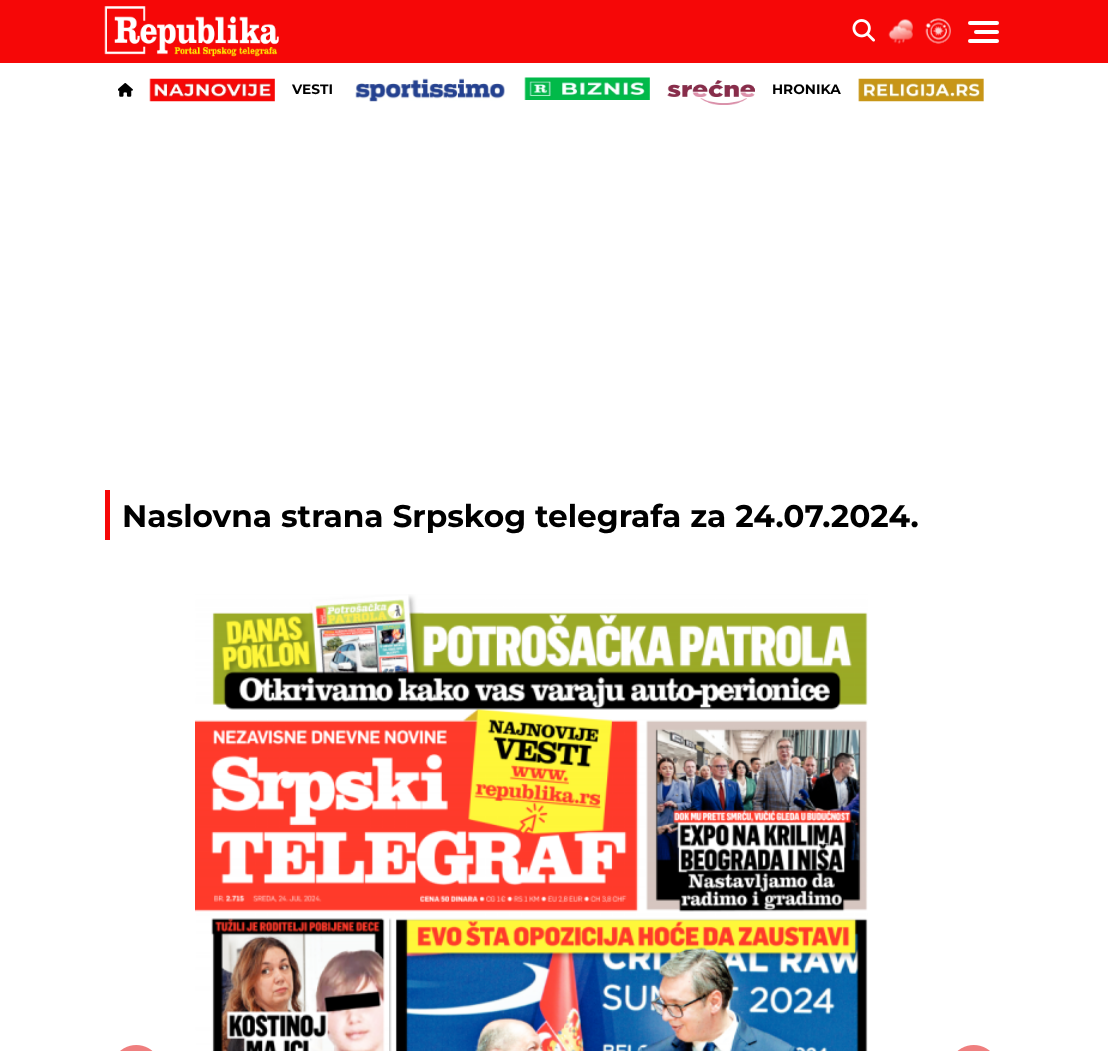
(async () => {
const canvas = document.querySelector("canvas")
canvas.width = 1108
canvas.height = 1051
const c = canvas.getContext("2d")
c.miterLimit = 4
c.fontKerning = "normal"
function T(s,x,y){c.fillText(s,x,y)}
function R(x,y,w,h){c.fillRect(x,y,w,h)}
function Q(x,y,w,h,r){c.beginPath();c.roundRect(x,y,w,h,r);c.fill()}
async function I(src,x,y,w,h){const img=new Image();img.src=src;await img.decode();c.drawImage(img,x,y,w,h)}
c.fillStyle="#fff"
R(0,0,1108,1051)
c.fillStyle="#f60707"
R(0,0,1108,63)
await I("1.png",104,6,175,51)
await I("2.png",852,19,23,23)
await I("3.png",888,19,25,25)
await I("4.png",925,18,26,26)
c.fillStyle="#fff"
Q(968,21,31,4,2)
Q(974,30,25,4,2)
Q(968,39,31,4,2)
await I("5.png",118,83,15,14)
await I("6.png",149,78,126,24)
c.font="bold 13.75px Montserrat"
c.fillStyle="#000"
T("VESTI",292,94)
await I("7.png",355,78,150,24)
await I("8.png",524,77,126,23)
await I("9.png",667,80,88,25)
T("HRONIKA",772,94)
await I("10.png",858,78,126,24)
c.fillStyle="#f60707"
R(105,490,5,50)
c.font="bold 31.25px Montserrat"
c.fillStyle="#000"
T("Naslovna strana Srpskog telegrafa za 24.07.2024.",122,527)
await I("11.png",120,1045,33,6)
await I("12.png",195,594,673,457)
await I("13.png",957,1045,33,6)
})()
